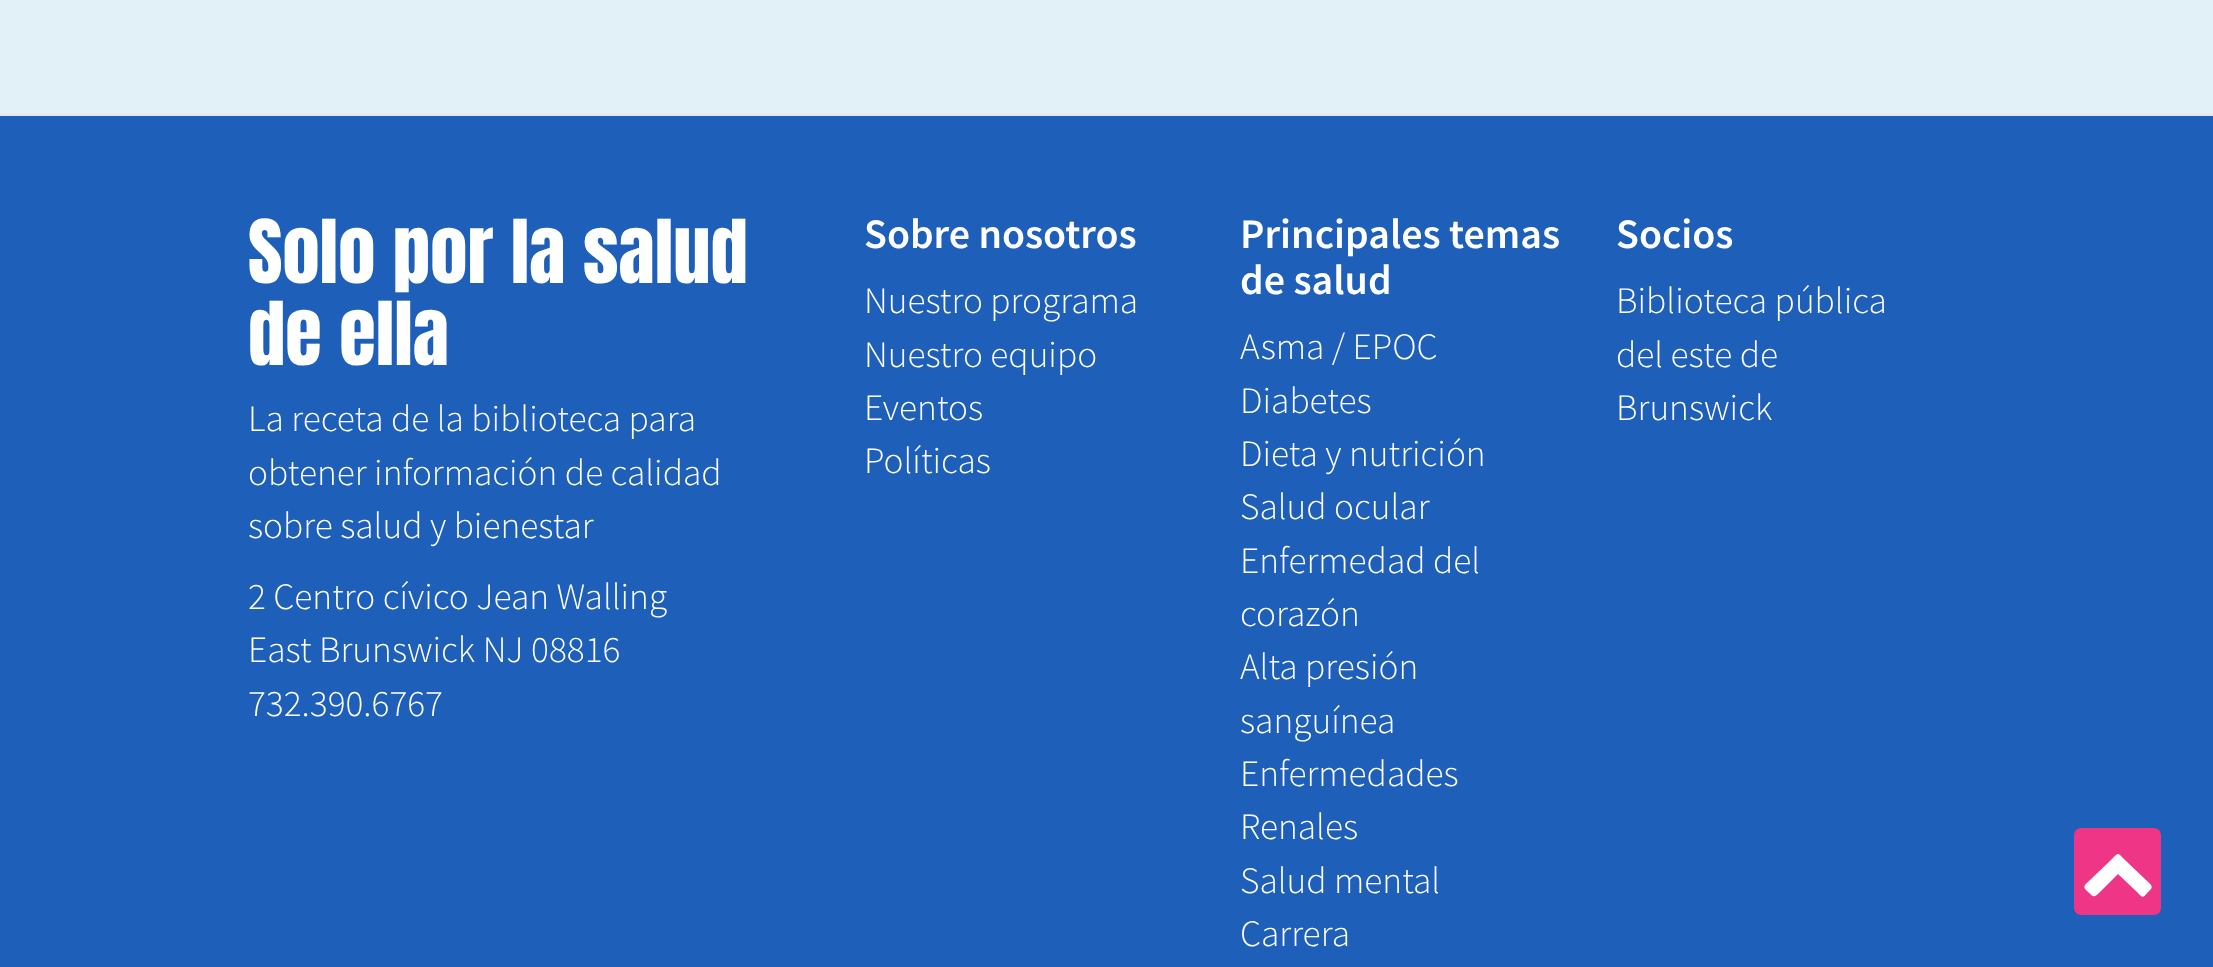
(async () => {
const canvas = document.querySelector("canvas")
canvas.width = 2213
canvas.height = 967
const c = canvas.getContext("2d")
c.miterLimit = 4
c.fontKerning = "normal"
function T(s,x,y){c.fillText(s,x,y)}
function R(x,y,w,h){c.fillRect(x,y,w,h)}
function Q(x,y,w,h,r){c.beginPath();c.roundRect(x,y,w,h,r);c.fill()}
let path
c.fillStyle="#e2f0f7"
R(0,0,2213,967)
c.fillStyle="#1e5fb9"
R(0,116,2213,851)
c.fillStyle="#e5e5e5"
R(0,114,2213,2)
c.font="74.75px Anton"
c.fillStyle="#fff"
T("Solo por la salud",248,283)
T("de ella",248,365)
c.font="300 37.3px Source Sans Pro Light"
T("La receta de la biblioteca para",248,431)
T("obtener información de calidad",248,485)
T("sobre salud y bienestar",248,538)
T("2 Centro cívico Jean Walling",248,609)
T("East Brunswick NJ 08816",248,662)
T("732.390.6767",248,716)
c.font="600 42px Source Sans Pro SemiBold"
T("Sobre nosotros",864,248)
c.font="300 37.3px Source Sans Pro Light"
T("Nuestro programa",864,313)
T("Nuestro equipo",864,367)
T("Eventos",864,420)
T("Políticas",864,473)
c.font="600 42px Source Sans Pro SemiBold"
T("Principales temas",1240,248)
T("de salud",1240,294)
c.font="300 37.3px Source Sans Pro Light"
T("Asma / EPOC",1240,359)
T("Diabetes",1240,413)
T("Dieta y nutrición",1240,466)
T("Salud ocular",1240,519)
T("Enfermedad del",1240,573)
T("corazón",1240,626)
T("Alta presión",1240,679)
T("sanguínea",1240,733)
T("Enfermedades",1240,786)
T("Renales",1240,839)
T("Salud mental",1240,893)
T("Carrera",1240,946)
c.font="600 42px Source Sans Pro SemiBold"
T("Socios",1616,248)
c.font="300 37.3px Source Sans Pro Light"
T("Biblioteca pública",1616,313)
T("del este de",1616,367)
T("Brunswick",1616,420)
c.fillStyle="#ee3586"
Q(2074,828,87,87,7)
c.fillStyle="#fff"
path = new Path2D("M2151 889c-8 8-7 11-14 3l-19-18l-18 18c-7 7-6 5-14-2c-4-4 0-6 4-10l21-20c8-8 6-8 14 0l21 20c1 1 8 6 5 9z")
c.fill(path)
})()
